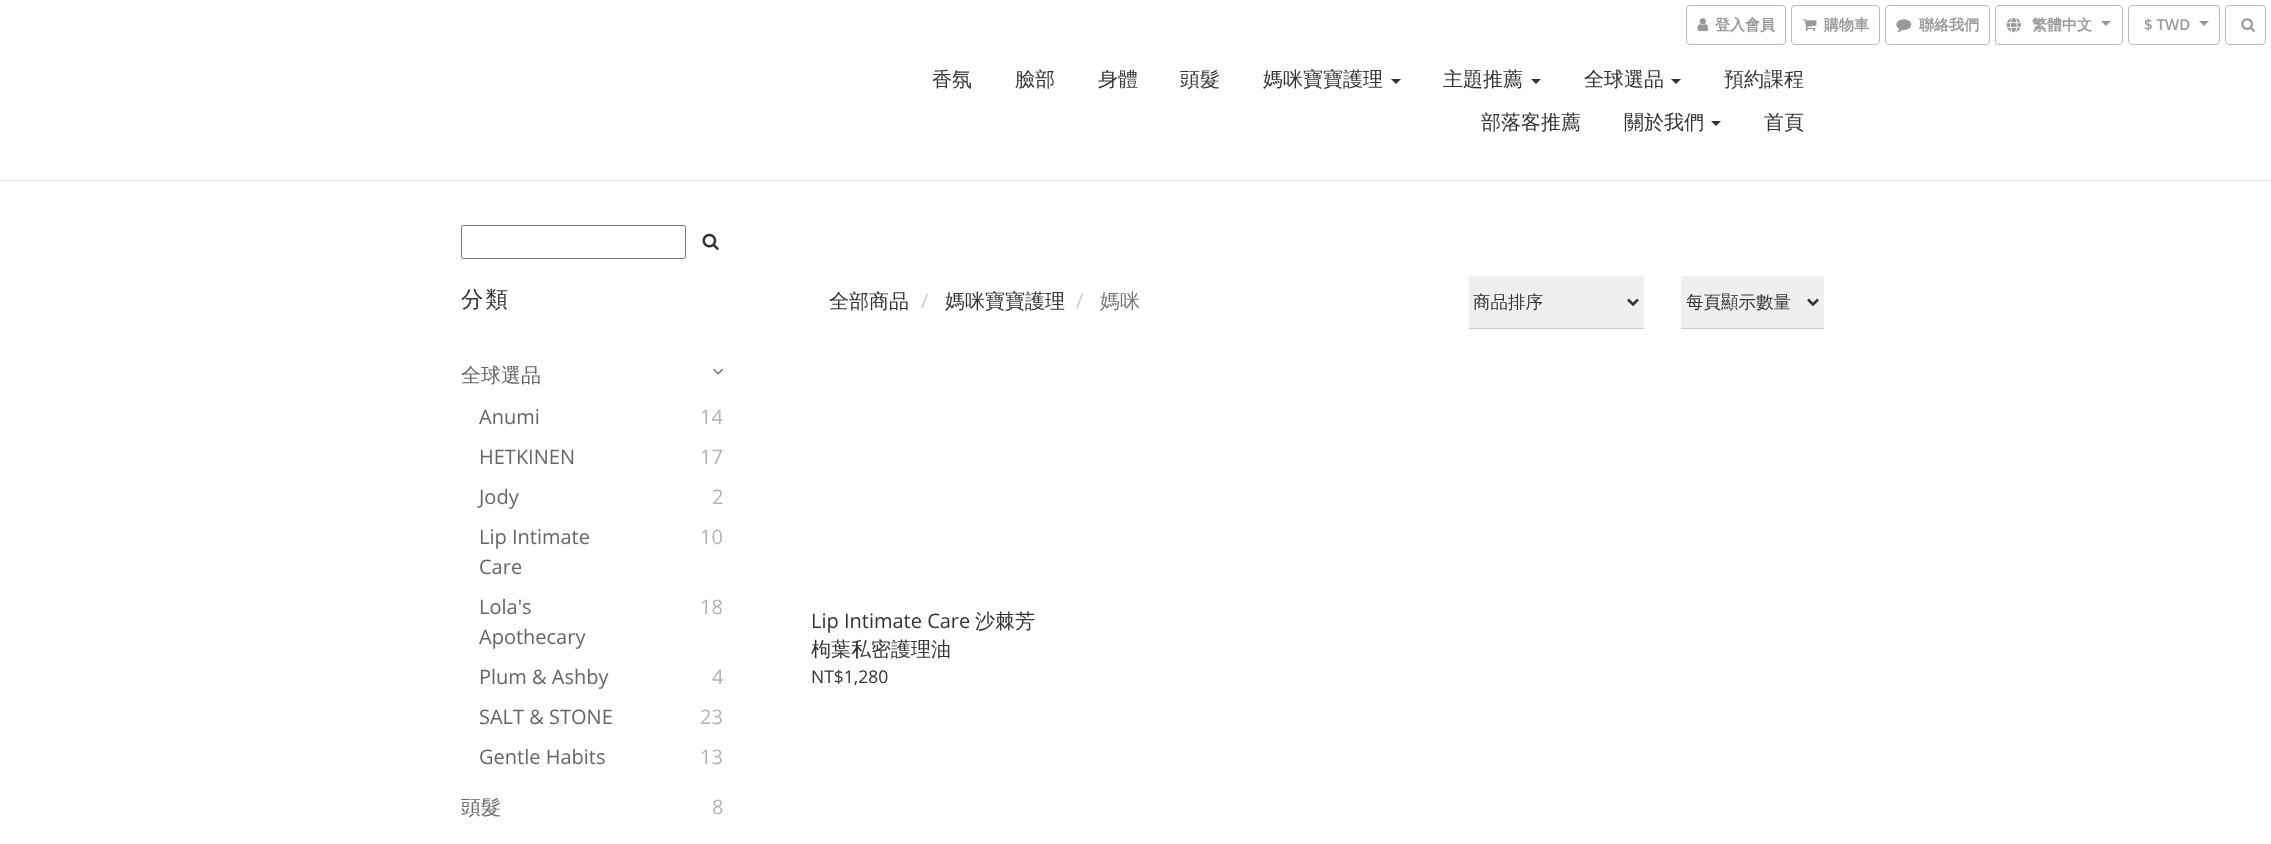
(async () => {
const canvas = document.querySelector("canvas")
canvas.width = 2271
canvas.height = 844
const c = canvas.getContext("2d")
c.miterLimit = 4
c.fontKerning = "normal"
function T(s,x,y){c.fillText(s,x,y)}
function R(x,y,w,h){c.fillRect(x,y,w,h)}
async function I(src,x,y,w,h){const img=new Image();img.src=src;await img.decode();c.drawImage(img,x,y,w,h)}
let path
c.fillStyle="#fff"
R(0,0,2271,844)
c.beginPath()
c.roundRect(1686.5,5.5,99,39,3.5)
c.strokeStyle="#bbb"
c.stroke()
await I("1.png",1697,18,12,14)
c.font="bold 15px WenQuanYi Zen Hei"
c.fillStyle="#999"
T("登入會員",1715,30)
c.beginPath()
c.roundRect(1791.5,5.5,88,39,3.5)
c.stroke()
await I("2.png",1802,19,15,12)
T("購物車",1824,30)
c.beginPath()
c.roundRect(1885.5,5.5,104,39,3.5)
c.stroke()
await I("3.png",1896,19,16,14)
T("聯絡我們",1919,30)
c.beginPath()
c.roundRect(1995.5,5.5,127,39,3.5)
c.stroke()
await I("4.png",2006,18,15,15)
T("繁體中文",2032,30)
path = new Path2D("M2101 21h10l-5 5z")
c.fill(path)
c.beginPath()
c.roundRect(2128.5,5.5,91,39,3.5)
c.stroke()
c.font="600 15px Open Sans"
T("$ TWD",2144,30)
path = new Path2D("M2199 21h10l-5 5z")
c.fill(path)
c.beginPath()
c.roundRect(2225.5,5.5,40,39,3.5)
c.stroke()
await I("5.png",2241,18,15,15)
c.fillStyle="#e0e0e0"
R(0,180,2271,1)
c.font="500 20px WenQuanYi Zen Hei"
c.fillStyle="#333"
T("香氛",932,86)
T("臉部",1015,86)
T("身體",1098,86)
T("頭髮",1180,86)
T("媽咪寶寶護理",1263,86)
path = new Path2D("M1391 79h10l-5 5z")
c.fill(path)
T("主題推薦",1443,86)
path = new Path2D("M1531 79h10l-5 5z")
c.fill(path)
T("全球選品",1584,86)
path = new Path2D("M1671 79h10l-5 5z")
c.fill(path)
T("預約課程",1724,86)
T("部落客推薦",1481,129)
T("關於我們",1624,129)
path = new Path2D("M1711 121h10l-5 5z")
c.fill(path)
T("首頁",1764,129)
c.beginPath()
c.roundRect(461.5,225.5,224,33,2)
c.strokeStyle="#767676"
c.stroke()
await I("6.png",702,233,17,17)
c.letterSpacing="2px"
c.font="500 22.5px WenQuanYi Zen Hei"
T("分類",461,307)
c.letterSpacing="0px"
c.font="500 20px WenQuanYi Zen Hei"
c.fillStyle="#666"
T("全球選品",461,382)
await I("7.png",713,368,10,7)
c.font="20px Open Sans"
T("Anumi",479,424)
c.fillStyle="#b3b3b3"
T("14",700,424)
c.fillStyle="#666"
T("HETKINEN",479,464)
c.fillStyle="#b3b3b3"
T("17",700,464)
c.fillStyle="#666"
T("Jody",479,504)
c.fillStyle="#b3b3b3"
T("2",712,504)
c.fillStyle="#666"
T("Lip Intimate",479,544)
T("Care",479,574)
c.fillStyle="#b3b3b3"
T("10",700,544)
c.fillStyle="#666"
T("Lola's",479,614)
T("Apothecary",479,644)
c.fillStyle="#b3b3b3"
T("18",700,614)
c.fillStyle="#666"
T("Plum & Ashby",479,684)
c.fillStyle="#b3b3b3"
T("4",712,684)
c.fillStyle="#666"
T("SALT & STONE",479,724)
c.fillStyle="#b3b3b3"
T("23",700,724)
c.fillStyle="#666"
T("Gentle Habits",479,764)
c.fillStyle="#b3b3b3"
T("13",700,764)
c.font="500 20px WenQuanYi Zen Hei"
c.fillStyle="#666"
T("頭髮",461,814)
c.font="20px Open Sans"
c.fillStyle="#b3b3b3"
T("8",712,814)
c.font="500 20px WenQuanYi Zen Hei"
c.fillStyle="#333"
T("全部商品",829,308)
c.font="20px Open Sans"
c.fillStyle="#ccc"
T("/",921,308)
c.font="500 20px WenQuanYi Zen Hei"
c.fillStyle="#333"
T("媽咪寶寶護理",945,308)
c.font="20px Open Sans"
c.fillStyle="#ccc"
T("/",1076,308)
c.font="500 20px WenQuanYi Zen Hei"
c.fillStyle="#777"
T("媽咪",1100,308)
c.fillStyle="#efefef"
R(1469,276,175,52)
c.fillStyle="#ccc"
R(1469,328,175,1)
path = new Path2D("M1628 299.5l5 5l5-5")
c.strokeStyle="#333"
c.lineWidth=2.5
c.stroke(path)
c.font="500 17.5px WenQuanYi Zen Hei"
c.fillStyle="#333"
T("商品排序",1473,308)
c.fillStyle="#efefef"
R(1681,276,143,52)
c.fillStyle="#ccc"
R(1681,328,143,1)
path = new Path2D("M1808 299.5l5 5l5-5")
c.stroke(path)
c.fillStyle="#333"
T("每頁顯示數量",1686,308)
c.font="20px Open Sans"
T("Lip Intimate Care",811,628)
c.font="500 20px WenQuanYi Zen Hei"
T("沙棘芳",975,628)
T("枸葉私密護理油",811,656)
c.font="17.5px Open Sans"
T("NT$1,280",811,683)
})()
